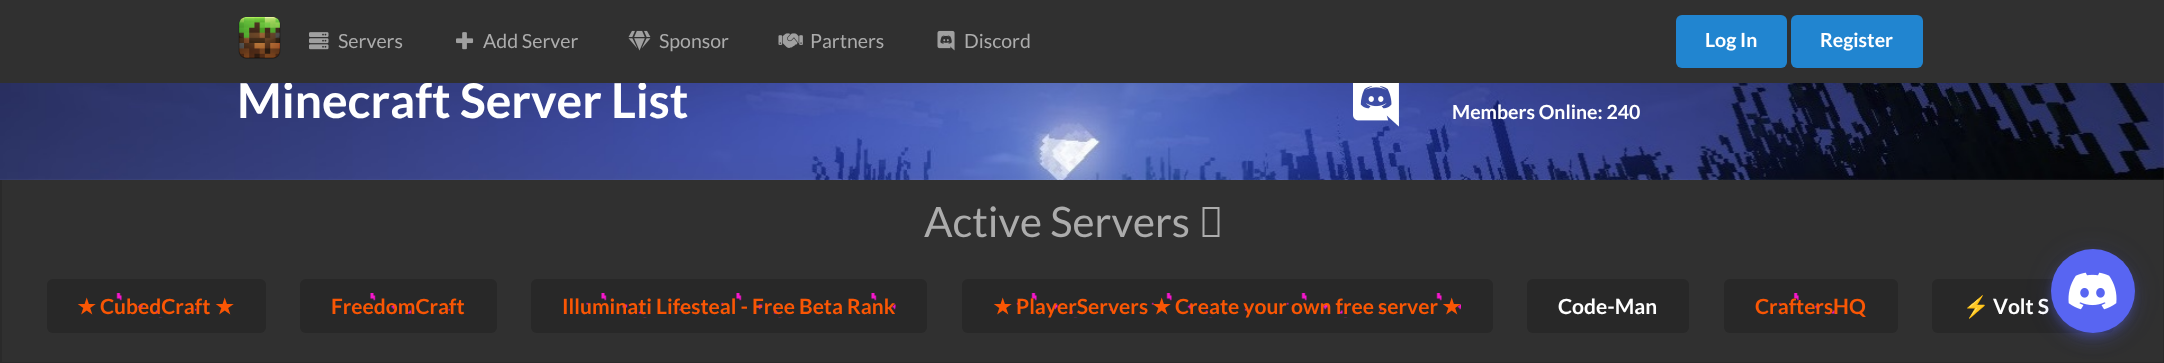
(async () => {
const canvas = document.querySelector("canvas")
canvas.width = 2164
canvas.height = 363
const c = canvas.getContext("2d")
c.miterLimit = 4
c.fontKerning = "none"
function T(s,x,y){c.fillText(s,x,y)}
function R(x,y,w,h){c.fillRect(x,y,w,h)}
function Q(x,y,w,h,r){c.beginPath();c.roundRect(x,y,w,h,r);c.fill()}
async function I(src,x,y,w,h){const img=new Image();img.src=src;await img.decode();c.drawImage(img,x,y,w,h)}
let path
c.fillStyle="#fff"
R(0,0,2164,363)
await I("7.png",0,83,2164,97)
c.font="bold 48px Lato"
T("Minecraft Server List",237,118)
c.fillStyle="#303030"
R(0,0,2164,83)
await I("1.png",238,17,43,42)
await I("2.png",309,32,20,18)
c.font="19.5px Lato"
c.fillStyle="#acacac"
T("Servers",338,48)
await I("3.png",456,32,18,18)
T("Add Server",483,48)
await I("4.png",628,30,23,21)
T("Sponsor",659,48)
await I("5.png",778,33,25,15)
T("Partners",810,48)
await I("6.png",937,30,18,21)
T("Discord",964,48)
c.fillStyle="#2185d0"
Q(1676,15,111,53,6)
c.font="bold 19.5px Lato"
c.fillStyle="#fff"
T("Log In",1705,47)
c.fillStyle="#2185d0"
Q(1791,15,132,53,6)
c.fillStyle="#fff"
T("Register",1820,47)
await I("8.png",1353,83,46,44)
T("Members Online: 240",1452,119)
c.fillStyle="#303030"
R(0,180,2164,183)
c.fillStyle="#2a2a2a"
path = new Path2D("M2164 180v183l-1-1v-182z")
c.fill(path)
c.fillStyle="#0000001f"
path = new Path2D("M2164 363h-2164l2-1h2161z")
c.fill(path)
c.fillStyle="#2a2a2a"
path = new Path2D("M0 363v-183h2v182z")
c.fill(path)
c.font="42px Lato"
c.fillStyle="#acacac"
T("Active Servers",924,237)
path = new Path2D("M1202.5 237v-30h17v30zm2-2h13v-26h-13z")
c.fill(path)
c.fillStyle="#282828"
Q(47,279,219,54,6)
c.font="bold 21px DejaVu Sans"
c.fillStyle="#f95604"
T("★",77,314)
await I("9.png",101,293,96,25)
c.font="bold 21px Lato"
T("CubedCraft",100,314)
c.font="bold 21px DejaVu Sans"
T("★",215,314)
c.fillStyle="#282828"
Q(300,279,197,54,6)
await I("10.png",355,293,96,21)
c.font="bold 21px Lato"
c.fillStyle="#f95604"
T("FreedomCraft",331,314)
c.fillStyle="#282828"
Q(531,279,396,54,6)
await I("11.png",586,293,310,25)
c.fillStyle="#f95604"
T("Illuminati Lifesteal - Free Beta Rank",562,314)
c.fillStyle="#282828"
Q(962,279,531,54,6)
c.font="bold 21px DejaVu Sans"
c.fillStyle="#f95604"
T("★",993,314)
await I("12.png",1016,293,445,25)
c.font="bold 21px Lato"
T("PlayerServers",1016,314)
c.font="bold 21px DejaVu Sans"
T("★",1152,314)
c.font="bold 21px Lato"
T("Create your own free server",1175,314)
c.font="bold 21px DejaVu Sans"
T("★",1442,314)
c.fillStyle="#282828"
Q(1527,279,162,54,6)
c.font="bold 21px Lato"
c.fillStyle="#fff"
T("Code-Man",1558,314)
c.fillStyle="#282828"
Q(1724,279,174,54,6)
await I("13.png",1778,293,57,21)
c.fillStyle="#f95604"
T("CraftersHQ",1755,314)
c.fillStyle="#282828"
Q(1932,279,182,54,6)
c.font="bold 21px Noto Color Emoji"
c.fillStyle="#fff"
T("⚡",1963,314)
c.font="bold 21px Lato"
T("Volt S",1993,314)
c.fillStyle="#5865f21f"
c.filter="blur(13.5px)"
c.beginPath()
c.roundRect(2051,251,84,84,42)
c.fill()
c.filter="none"
c.fillStyle="#5865f224"
c.filter="blur(7.5px)"
c.beginPath()
c.roundRect(2051,258,84,84,42)
c.fill()
c.filter="none"
c.fillStyle="#5865f24d"
c.filter="blur(4px)"
c.beginPath()
c.roundRect(2052,255,81,81,40.5)
c.fill()
c.filter="none"
c.fillStyle="#5865f2"
c.beginPath()
c.arc(2093,291,42,0,7)
c.fill()
await I("14.png",2068,272,49,38)
})()
